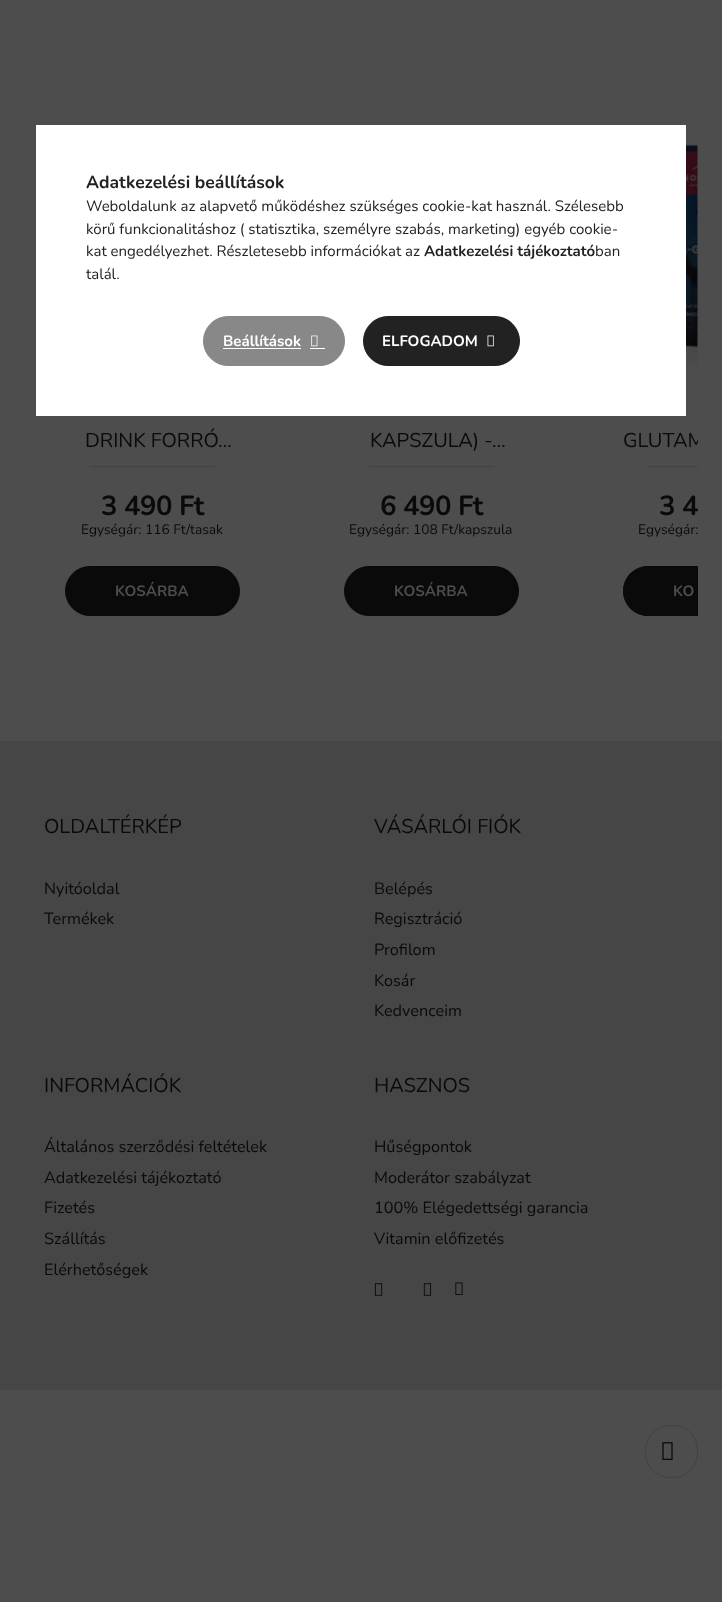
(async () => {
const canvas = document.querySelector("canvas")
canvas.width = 722
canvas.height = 1602
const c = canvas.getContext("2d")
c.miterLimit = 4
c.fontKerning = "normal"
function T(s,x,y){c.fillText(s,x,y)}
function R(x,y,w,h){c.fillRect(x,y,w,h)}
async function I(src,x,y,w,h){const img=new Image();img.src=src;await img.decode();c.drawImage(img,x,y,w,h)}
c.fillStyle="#4d4d4d"
R(0,0,722,1602)
c.fillStyle="#fff"
R(36,125,650,291)
c.font="bold 17.5px Nunito"
c.fillStyle="#222"
T("Adatkezelési beállítások",86,188)
c.font="15px Nunito"
T("Weboldalunk az alapvető működéshez szükséges cookie-kat használ. Szélesebb",86,211)
T("körű funkcionalitáshoz ( statisztika, személyre szabás, marketing) egyéb cookie-",86,234)
T("kat engedélyezhet. Részletesebb információkat az",86,256)
c.font="bold 15px Nunito"
T("Adatkezelési tájékoztató",424,256)
c.font="15px Nunito"
T("ban",595,256)
T("talál.",86,279)
c.fillStyle="#888"
c.beginPath()
c.roundRect(203.5,316.5,141,49,24.5)
c.fill()
c.strokeStyle="#888"
c.stroke()
c.font="bold 15px Nunito"
c.fillStyle="#fff"
T("Beállítások",223,346)
R(223,348,78,1)
await I("1.png",311,335,7,12)
R(310,348,15,1)
c.fillStyle="#222"
c.beginPath()
c.roundRect(363.5,316.5,156,49,24.5)
c.fill()
c.strokeStyle="#222"
c.stroke()
c.fillStyle="#fff"
T("ELFOGADOM",382,346)
await I("2.png",487,335,7,12)
c.font="20px Nunito"
c.fillStyle="#0a0a0a"
T("DRINK FORRÓ…",85,447)
c.fillStyle="#424242"
R(90,466,125,1)
c.letterSpacing="-0.5px"
c.font="bold 27.5px Nunito"
c.fillStyle="#0a0a0a"
T("3 490 Ft",101,515)
c.letterSpacing="0px"
c.font="13.75px Nunito"
T("Egységár: 116 Ft/tasak",81,534)
c.beginPath()
c.roundRect(65.5,566.5,174,49,24.5)
c.fill()
c.strokeStyle="#0a0a0a"
c.stroke()
c.font="bold 15px Nunito"
c.fillStyle="#4d4d4d"
T("KOSÁRBA",115,596)
c.font="20px Nunito"
c.fillStyle="#0a0a0a"
T("KAPSZULA) -…",370,447)
c.fillStyle="#424242"
R(369,466,125,1)
c.letterSpacing="-0.5px"
c.font="bold 27.5px Nunito"
c.fillStyle="#0a0a0a"
T("6 490 Ft",380,515)
c.letterSpacing="0px"
c.font="13.75px Nunito"
T("Egységár: 108 Ft/kapszula",349,534)
c.beginPath()
c.roundRect(344.5,566.5,174,49,24.5)
c.fill()
c.stroke()
c.font="bold 15px Nunito"
c.fillStyle="#4d4d4d"
T("KOSÁRBA",394,596)
await I("3.png",686,143,12,224)
c.save()
c.beginPath()
c.rect(608,399,90,56)
c.clip()
c.font="20px Nunito"
c.fillStyle="#0a0a0a"
T("GLUTAM",623,447)
c.restore()
c.fillStyle="#424242"
R(648,466,50,1)
c.letterSpacing="-0.5px"
c.font="bold 27.5px Nunito"
c.fillStyle="#0a0a0a"
T("3 4",659,515)
c.letterSpacing="0px"
c.font="13.75px Nunito"
T("Egységár:",638,534)
c.beginPath()
c.roundRect(623,566,75,50,[25,0,0,25])
c.fill()
c.save()
c.beginPath()
c.rect(25,120,673,521)
c.clip()
c.beginPath()
c.roundRect(623.5,566.5,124,49,24.5)
c.stroke()
c.restore()
c.font="bold 15px Nunito"
c.fillStyle="#4d4d4d"
T("KO",673,596)
c.fillStyle="#464646"
R(0,741,722,649)
c.font="20px Nunito"
c.fillStyle="#0a0a0a"
T("OLDALTÉRKÉP",44,833)
c.font="16.25px Nunito"
T("Nyitóoldal",44,894)
T("Termékek",44,924)
c.font="20px Nunito"
T("VÁSÁRLÓI FIÓK",374,833)
c.font="16.25px Nunito"
T("Belépés",374,894)
T("Regisztráció",374,924)
T("Profilom",374,955)
T("Kosár",374,986)
T("Kedvenceim",374,1016)
c.font="20px Nunito"
T("INFORMÁCIÓK",44,1092)
c.font="16.25px Nunito"
T("Általános szerződési feltételek",44,1152)
T("Adatkezelési tájékoztató",44,1183)
T("Fizetés",44,1213)
T("Szállítás",44,1244)
T("Elérhetőségek",44,1275)
c.font="20px Nunito"
T("HASZNOS",374,1092)
c.font="16.25px Nunito"
T("Hűségpontok",374,1152)
T("Moderátor szabályzat",374,1183)
T("100% Elégedettségi garancia",374,1213)
T("Vitamin előfizetés",374,1244)
await I("4.png",374,1283,9,13)
await I("5.png",423,1283,9,13)
await I("6.png",455,1282,8,13)
c.beginPath()
c.roundRect(645.5,1425.5,52,52,24.5)
c.strokeStyle="#424242"
c.stroke()
await I("7.png",662,1442,11,18)
})()
